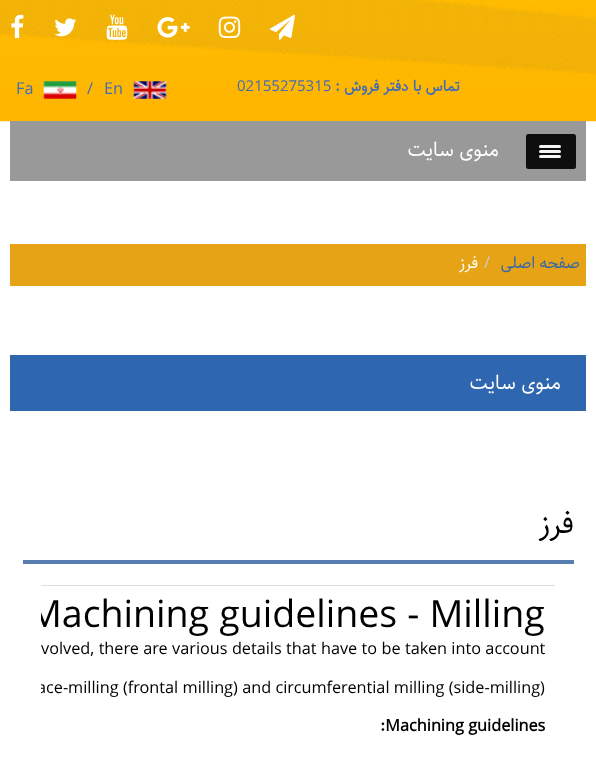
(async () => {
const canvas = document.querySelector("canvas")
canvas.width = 596
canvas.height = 770
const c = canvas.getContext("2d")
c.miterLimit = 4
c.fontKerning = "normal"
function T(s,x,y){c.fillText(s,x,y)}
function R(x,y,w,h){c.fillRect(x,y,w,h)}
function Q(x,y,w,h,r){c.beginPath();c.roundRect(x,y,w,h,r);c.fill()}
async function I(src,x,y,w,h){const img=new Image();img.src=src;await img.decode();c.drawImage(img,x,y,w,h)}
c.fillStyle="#fff"
R(0,0,596,770)
await I("1.png",0,0,596,122)
await I("2.png",11,14,13,25)
await I("3.png",54,18,23,19)
await I("4.png",106,14,22,26)
await I("5.png",157,17,33,21)
await I("6.png",218,16,23,22)
await I("7.png",270,14,25,26)
c.font="16.25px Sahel"
c.fillStyle="#416db5"
T("Fa",16,94)
await I("8.png",43,81,34,18)
T("/",87,94)
T("En",104,94)
await I("9.png",133,81,34,18)
c.font="15px Sahel"
T("02155275315",237,91)
c.direction="rtl"
c.font="bold 15px Sahel"
T("تماس با دفتر فروش :",460,91)
c.fillStyle="#999"
R(10,121,576,60)
c.font="20px Sahel"
c.fillStyle="#fff"
T("منوی سایت",499,156)
c.fillStyle="#0e0e0e"
Q(526,134,50,35,2.5)
c.fillStyle="#f5f5f5"
Q(539,145,22,3,1.5)
Q(539,150,22,3,1.5)
Q(539,155,22,3,1.5)
c.fillStyle="#e6a316"
R(10,244,576,42)
c.font="16.25px Sahel"
c.fillStyle="#fff"
T("فرز",478,268)
c.direction="ltr"
c.fillStyle="#ccc"
T("/",484,268)
c.direction="rtl"
c.fillStyle="#3066b0"
T("صفحه اصلی",580,268)
c.fillStyle="#2f66b0"
R(10,355,576,56)
c.font="20px Sahel"
c.fillStyle="#fff"
T("منوی سایت",561,389)
c.fillStyle="#577db1"
R(23,560,551,4)
c.font="30px Sahel"
c.fillStyle="#000"
T("فرز",574,533)
c.fillStyle="#ddd"
R(41,585,514,1)
c.save()
c.beginPath()
c.rect(41,585,514,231)
c.clip()
c.direction="ltr"
c.font="37.5px Sahel"
c.fillStyle="#000"
T("Machining guidelines - Milling",28,627)
c.restore()
c.direction="ltr"
c.font="16.25px Sahel"
c.fillStyle="#000"
T("volved, there are various details that have to be taken into account",41,654)
c.save()
c.beginPath()
c.rect(41,585,514,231)
c.clip()
T("ace-milling (frontal milling) and circumferential milling (side-milling)",37,693)
c.restore()
c.font="bold 16.25px Sahel"
T(":Machining guidelines",380,731)
})()
